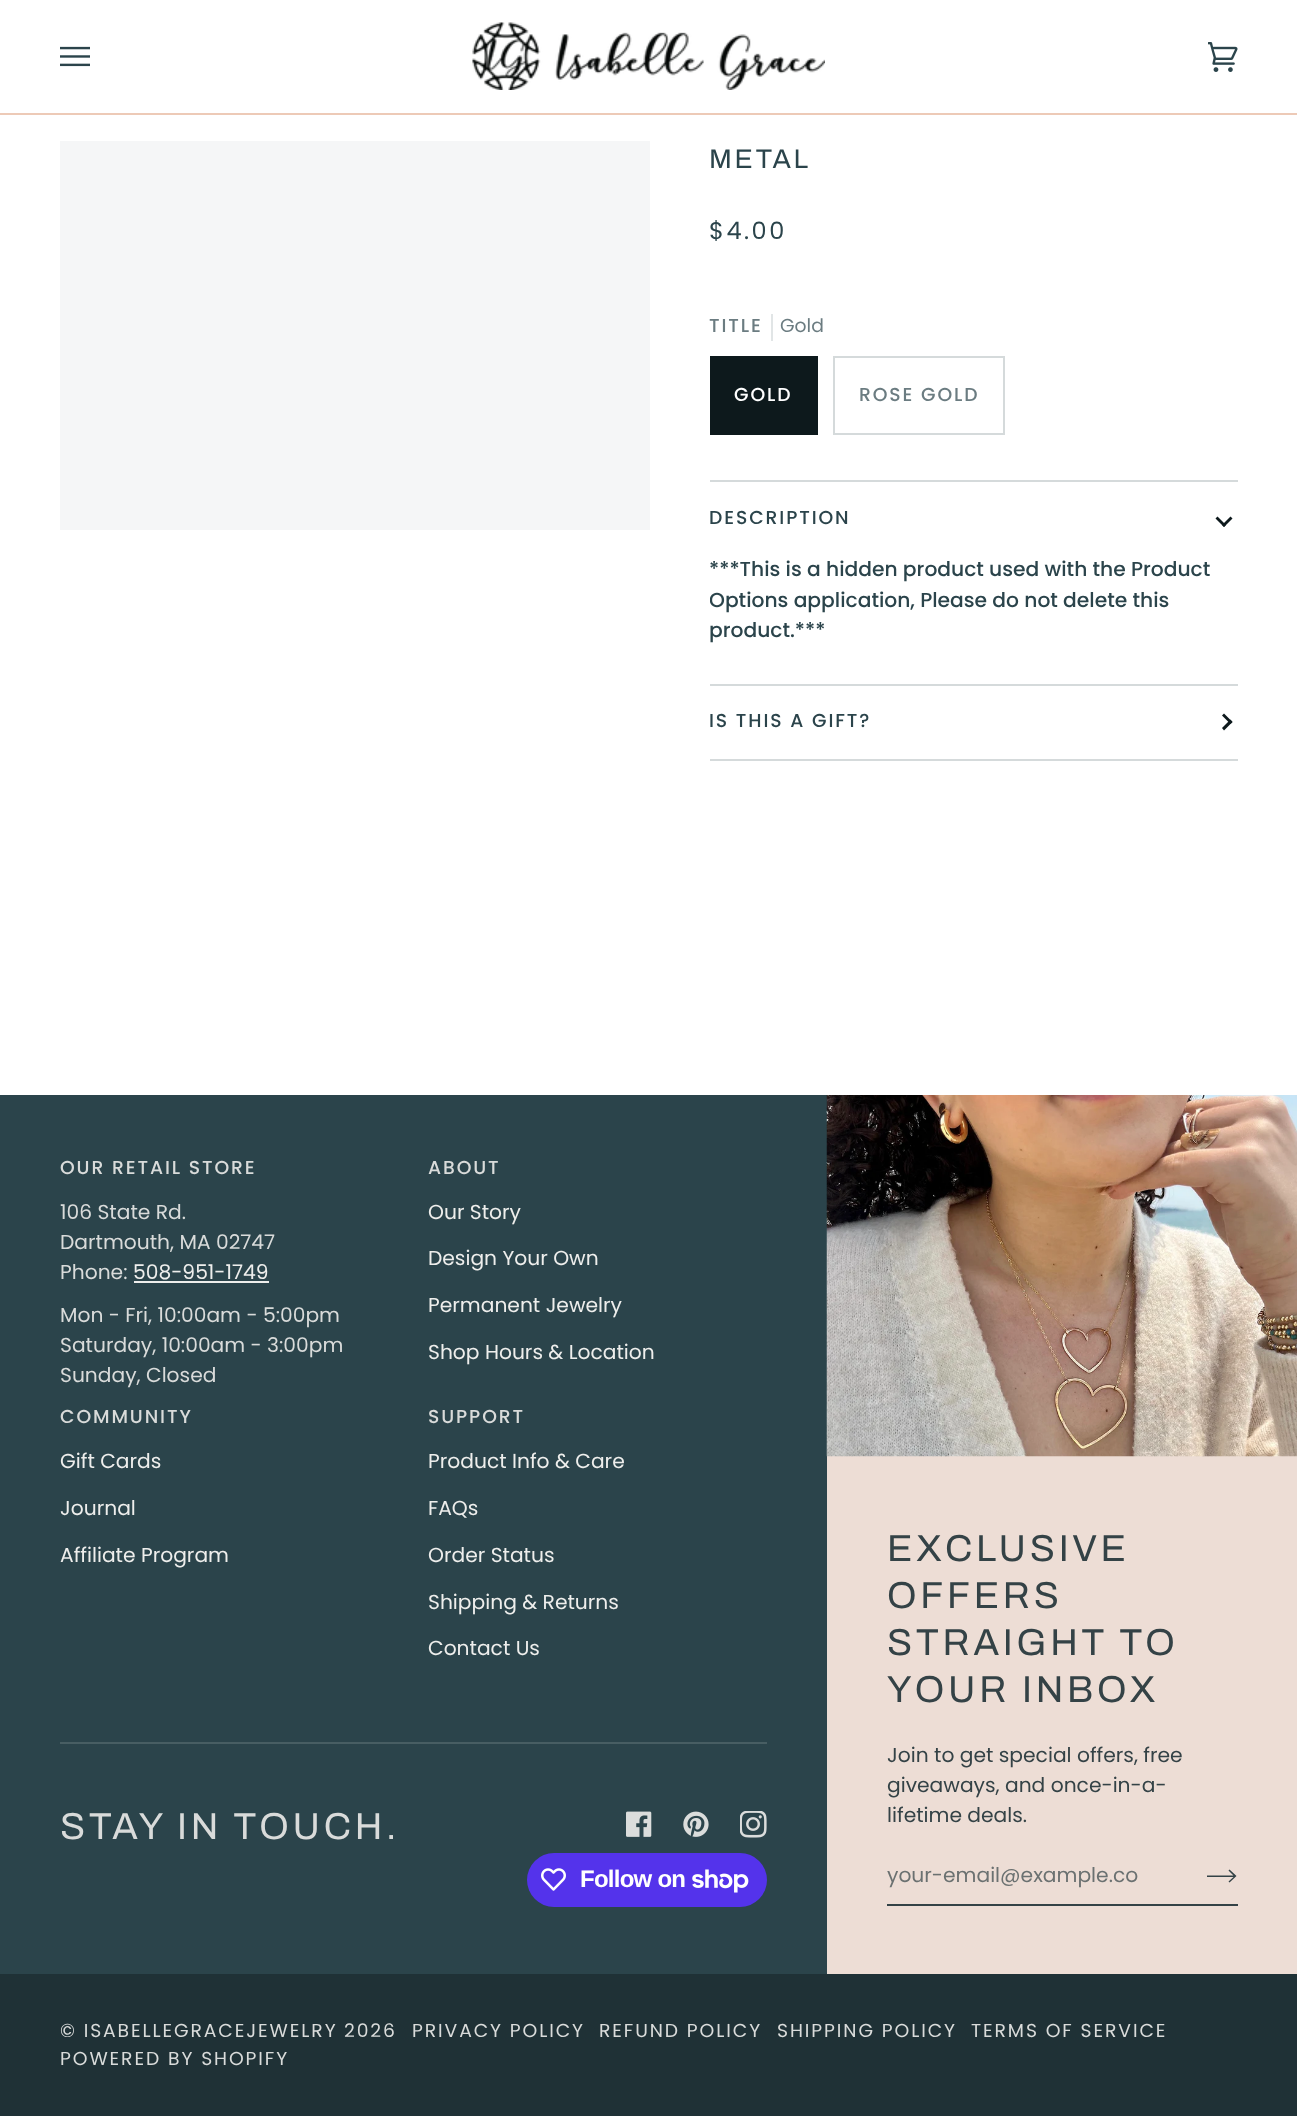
(async () => {
const canvas = document.querySelector("canvas")
canvas.width = 1297
canvas.height = 2116
const c = canvas.getContext("2d")
c.miterLimit = 4
c.fontKerning = "normal"
function T(s,x,y){c.fillText(s,x,y)}
function R(x,y,w,h){c.fillRect(x,y,w,h)}
function Q(x,y,w,h,r){c.beginPath();c.roundRect(x,y,w,h,r);c.fill()}
async function I(src,x,y,w,h){const img=new Image();img.src=src;await img.decode();c.drawImage(img,x,y,w,h)}
let path
c.fillStyle="#fff"
R(0,0,1297,2116)
c.fillStyle="#edcab7"
R(0,113,1297,2)
await I("1.png",60,46,30,21)
await I("2.png",472,22,353,68)
await I("3.png",1208,42,30,30)
c.fillStyle="#f5f6f7"
R(60,141,590,389)
c.letterSpacing="2.75px"
c.font="27px Archivo"
c.fillStyle="#2b444b"
T("METAL",709,168)
c.letterSpacing="2.5px"
c.font="24px Poppins"
T("$4.00",709,239)
c.letterSpacing="1.9px"
c.font="500 18.75px Poppins"
c.fillStyle="#6b7c81"
T("TITLE",709,332)
c.fillStyle="#e1e5e6"
R(771,314,2,27)
c.letterSpacing="0px"
c.font="18.75px Poppins"
c.fillStyle="#6b7c81"
T("Gold",780,332)
c.fillStyle="#0d191c"
R(710,356,108,79)
c.letterSpacing="1.9px"
c.font="500 18.75px Poppins"
c.fillStyle="#fff"
T("GOLD",734,401)
c.strokeStyle="#d5dadb"
c.lineWidth=2
c.strokeRect(834,357,170,77)
c.fillStyle="#6b7c81"
T("ROSE GOLD",859,401)
c.fillStyle="#d5dadb"
R(710,480,528,2)
R(710,684,528,2)
c.fillStyle="#2b444b"
T("DESCRIPTION",709,524)
c.fillStyle="#0d191c"
path = new Path2D("M1222 525l8.5-8.5l2 2l-8.5 8.5z")
c.fill(path)
path = new Path2D("M1215.5 518.5l2-2l8.5 8.5l-2 2z")
c.fill(path)
c.letterSpacing="0px"
c.font="500 20.25px Poppins"
c.fillStyle="#2b444b"
T("***This is a hidden product used with the Product",709,576)
c.save()
c.beginPath()
c.rect(710,555,528,129)
c.clip()
T("Options application, Please do not delete this",709,607)
c.restore()
T("product.***",709,637)
c.fillStyle="#d5dadb"
R(710,759,528,2)
c.letterSpacing="1.9px"
c.font="500 18.75px Poppins"
c.fillStyle="#2b444b"
T("IS THIS A GIFT?",709,727)
c.fillStyle="#0d191c"
path = new Path2D("M1230.5 724l-8.5-8.5l2-2l8.5 8.5z")
c.fill(path)
path = new Path2D("M1224 730.5l-2-2.5l8.5-8.5l2 2.5z")
c.fill(path)
c.fillStyle="#2b444b"
R(0,1095,827,879)
c.fillStyle="#d9dbda"
T("OUR RETAIL STORE",60,1174)
c.letterSpacing="0px"
c.font="20.25px Poppins"
T("106 State Rd.",60,1219)
T("Dartmouth, MA 02747",60,1249)
T("Phone:",60,1279)
c.fillStyle="#eeeeec"
T("508-951-1749",133,1279)
R(134,1281,135,2)
c.fillStyle="#d9dbda"
T("Mon - Fri, 10:00am - 5:00pm",60,1322)
T("Saturday, 10:00am - 3:00pm",60,1352)
T("Sunday, Closed",60,1382)
c.letterSpacing="1.9px"
c.font="500 18.75px Poppins"
T("ABOUT",428,1174)
c.letterSpacing="0px"
c.font="20.25px Poppins"
c.fillStyle="#eeeeec"
T("Our Story",428,1219)
T("Design Your Own",428,1265)
T("Permanent Jewelry",428,1312)
T("Shop Hours & Location",428,1359)
c.letterSpacing="1.9px"
c.font="500 18.75px Poppins"
c.fillStyle="#d9dbda"
T("COMMUNITY",60,1423)
c.letterSpacing="0px"
c.font="20.25px Poppins"
c.fillStyle="#eeeeec"
T("Gift Cards",60,1468)
T("Journal",60,1515)
T("Affiliate Program",60,1562)
c.letterSpacing="1.9px"
c.font="500 18.75px Poppins"
c.fillStyle="#d9dbda"
T("SUPPORT",428,1423)
c.letterSpacing="0px"
c.font="20.25px Poppins"
c.fillStyle="#eeeeec"
T("Product Info & Care",428,1468)
T("FAQs",428,1515)
T("Order Status",428,1562)
T("Shipping & Returns",428,1609)
T("Contact Us",428,1655)
c.fillStyle="#485e63"
R(60,1742,707,2)
c.letterSpacing="3.75px"
c.font="37.5px Archivo"
c.fillStyle="#d9dbda"
T("STAY IN TOUCH.",60,1839)
await I("4.png",626,1811,26,26)
await I("5.png",683,1811,26,26)
await I("6.png",740,1811,27,27)
c.fillStyle="#5433eb"
Q(527,1853,240,54,27)
await I("7.png",541,1868,25,23)
c.letterSpacing="-0.75px"
c.font="bold 24px Liberation Sans"
c.fillStyle="#fff"
T("Follow on",580,1887)
await I("8.png",692,1869,57,24)
c.fillStyle="#edddd5"
R(827,1456,470,518)
await I("9.png",826,1095,471,362)
c.letterSpacing="3.75px"
c.font="37.5px Archivo"
c.fillStyle="#344246"
T("EXCLUSIVE",887,1561)
T("OFFERS",887,1608)
T("STRAIGHT TO",887,1655)
T("YOUR INBOX",887,1702)
c.letterSpacing="0px"
c.font="20.25px Poppins"
T("Join to get special offers, free",887,1762)
T("giveaways, and once-in-a-",887,1792)
T("lifetime deals.",887,1822)
R(887,1904,351,2)
c.fillStyle="#6b7171"
T("your-email@example.co",887,1882)
c.fillStyle="#344246"
path = new Path2D("M1228.5 1870.5l1-1l7 6.5l-7 6.5l-1-1l5-4.5h-26.5v-1.5h26.5z")
c.fill(path)
c.fillStyle="#1f3136"
R(0,1974,1297,142)
c.letterSpacing="1.9px"
c.font="18.75px Poppins"
c.fillStyle="#d9dbda"
T("© ISABELLEGRACEJEWELRY",60,2037)
T("2026",344,2037)
T("PRIVACY POLICY",412,2037)
T("REFUND POLICY",599,2037)
T("SHIPPING POLICY",777,2037)
T("TERMS OF SERVICE",971,2037)
T("POWERED BY SHOPIFY",60,2065)
})()
